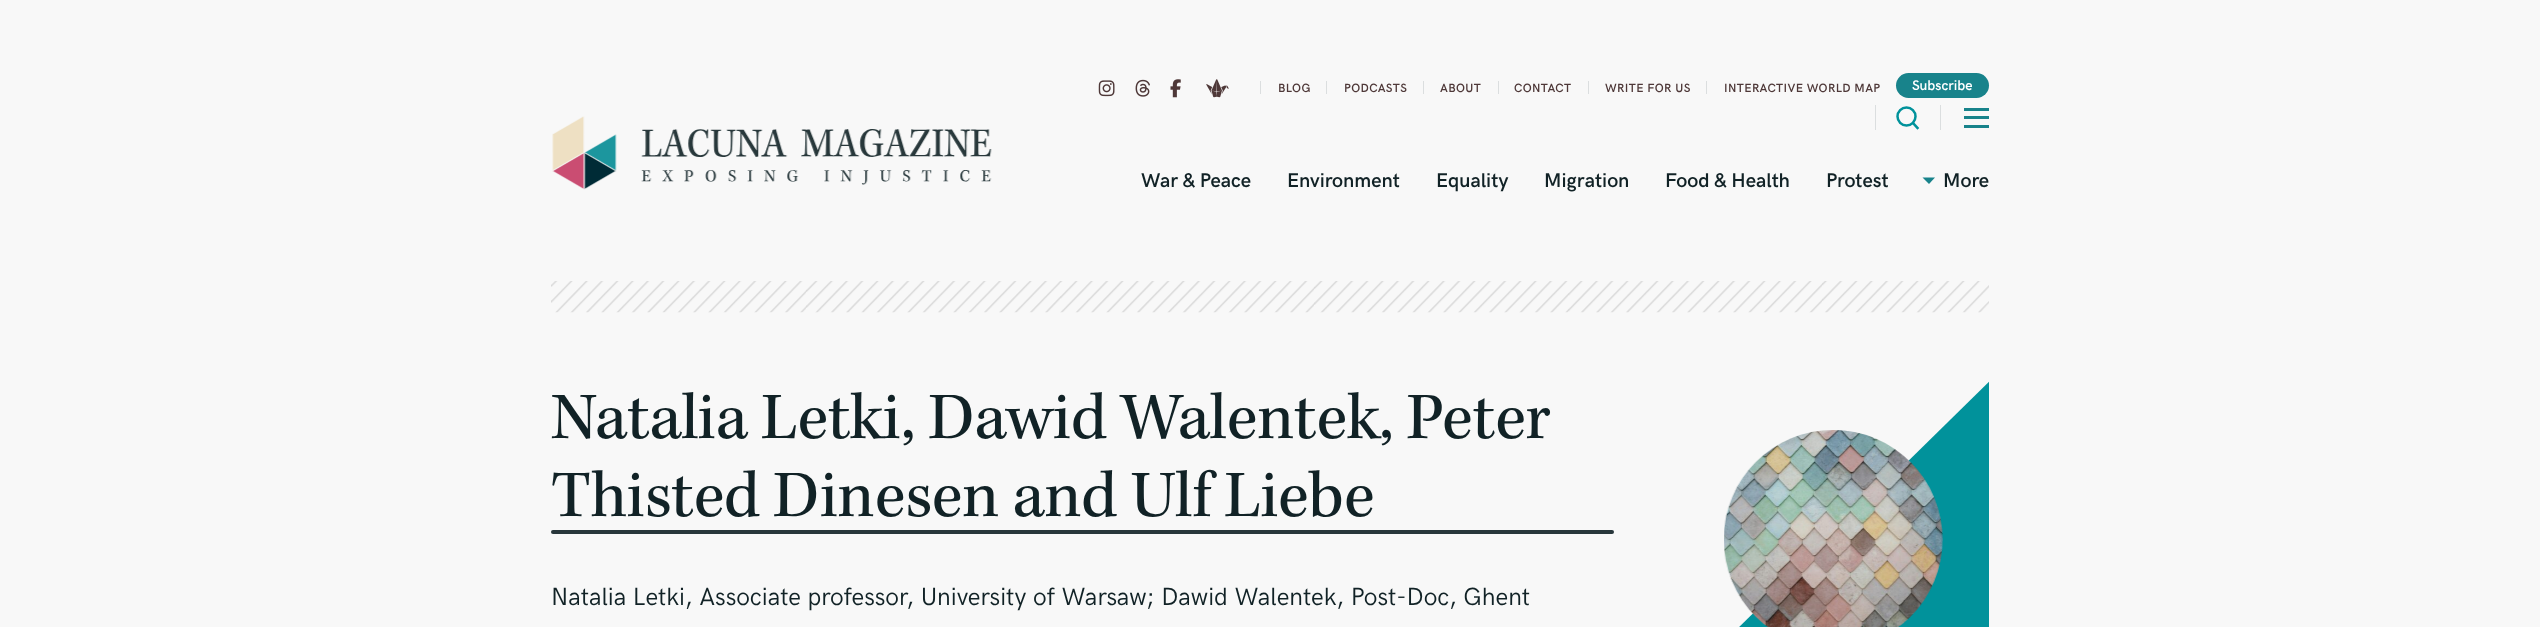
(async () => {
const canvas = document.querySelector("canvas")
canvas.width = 2540
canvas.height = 627
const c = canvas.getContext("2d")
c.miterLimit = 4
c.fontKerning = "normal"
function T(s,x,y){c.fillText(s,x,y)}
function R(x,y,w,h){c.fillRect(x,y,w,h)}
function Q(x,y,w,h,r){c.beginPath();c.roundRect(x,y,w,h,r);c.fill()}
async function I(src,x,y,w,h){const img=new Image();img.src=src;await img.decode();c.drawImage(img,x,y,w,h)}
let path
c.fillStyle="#f8f8f8"
R(0,0,2540,627)
await I("1.png",552,116,440,74)
await I("2.png",1098,80,17,17)
await I("3.png",1135,79,15,18)
await I("4.png",1170,79,11,19)
await I("5.png",1206,79,23,19)
c.fillStyle="#dbdedf"
R(1260,81,1,13)
c.letterSpacing="0.4px"
c.font="600 12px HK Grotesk"
c.fillStyle="#4e3838"
T("BLOG",1278,92)
c.fillStyle="#dbdedf"
R(1326,81,1,13)
c.fillStyle="#4e3838"
T("PODCASTS",1344,92)
c.fillStyle="#dbdedf"
R(1423,81,1,13)
c.fillStyle="#4e3838"
T("ABOUT",1440,92)
c.fillStyle="#dbdedf"
R(1498,81,1,13)
c.fillStyle="#4e3838"
T("CONTACT",1514,92)
c.fillStyle="#dbdedf"
R(1588,81,1,13)
c.fillStyle="#4e3838"
T("WRITE FOR US",1605,92)
c.fillStyle="#dbdedf"
R(1706,81,1,13)
c.fillStyle="#4e3838"
T("INTERACTIVE WORLD MAP",1724,92)
c.fillStyle="#18838b"
Q(1896,73,93,25,12.5)
c.letterSpacing="0px"
c.font="600 14px HK Grotesk"
c.fillStyle="#fff"
T("Subscribe",1912,90)
c.fillStyle="#dbdedf"
R(1940,105,1,25)
R(1875,105,1,25)
c.beginPath()
c.arc(1906.5,116.5,9,0,7)
c.strokeStyle="#01929b"
c.lineWidth=2.5
c.stroke()
path = new Path2D("M1913.5 123.5l4 4.5")
c.lineCap="square"
c.stroke(path)
c.fillStyle="#18838b"
R(1964,125,25,3)
R(1964,116,25,3)
R(1964,108,25,3)
c.font="600 20px HK Grotesk"
c.fillStyle="#112226"
T("War & Peace",1141,187)
T("Environment",1287,187)
T("Equality",1436,187)
T("Migration",1544,187)
T("Food & Health",1665,187)
T("Protest",1826,187)
c.fillStyle="#18838b"
path = new Path2D("M1922.5 177.5h12.5l-6 6.5z")
c.fill(path)
c.fillStyle="#112226"
T("More",1943,187)
await I("6.png",551,281,1438,32)
c.letterSpacing="-0.6px"
c.font="68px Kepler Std"
T("Natalia Letki, Dawid Walentek, Peter",551,438)
T("Thisted Dinesen and Ulf Liebe",551,516)
c.fillStyle="#28373b"
Q(551,530,1063,4,2)
c.letterSpacing="0px"
c.font="25px HK Grotesk"
c.fillStyle="#112226"
T("Natalia Letki, Associate professor, University of Warsaw; Dawid Walentek, Post-Doc, Ghent",551,605)
c.save()
c.beginPath()
c.rect(1676,360,313,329)
c.clip()
c.fillStyle="#01929b"
path = new Path2D("M2116 257v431h-439z")
c.fill(path,"evenodd")
c.restore()
await I("7.png",1724,430,219,197)
})()
